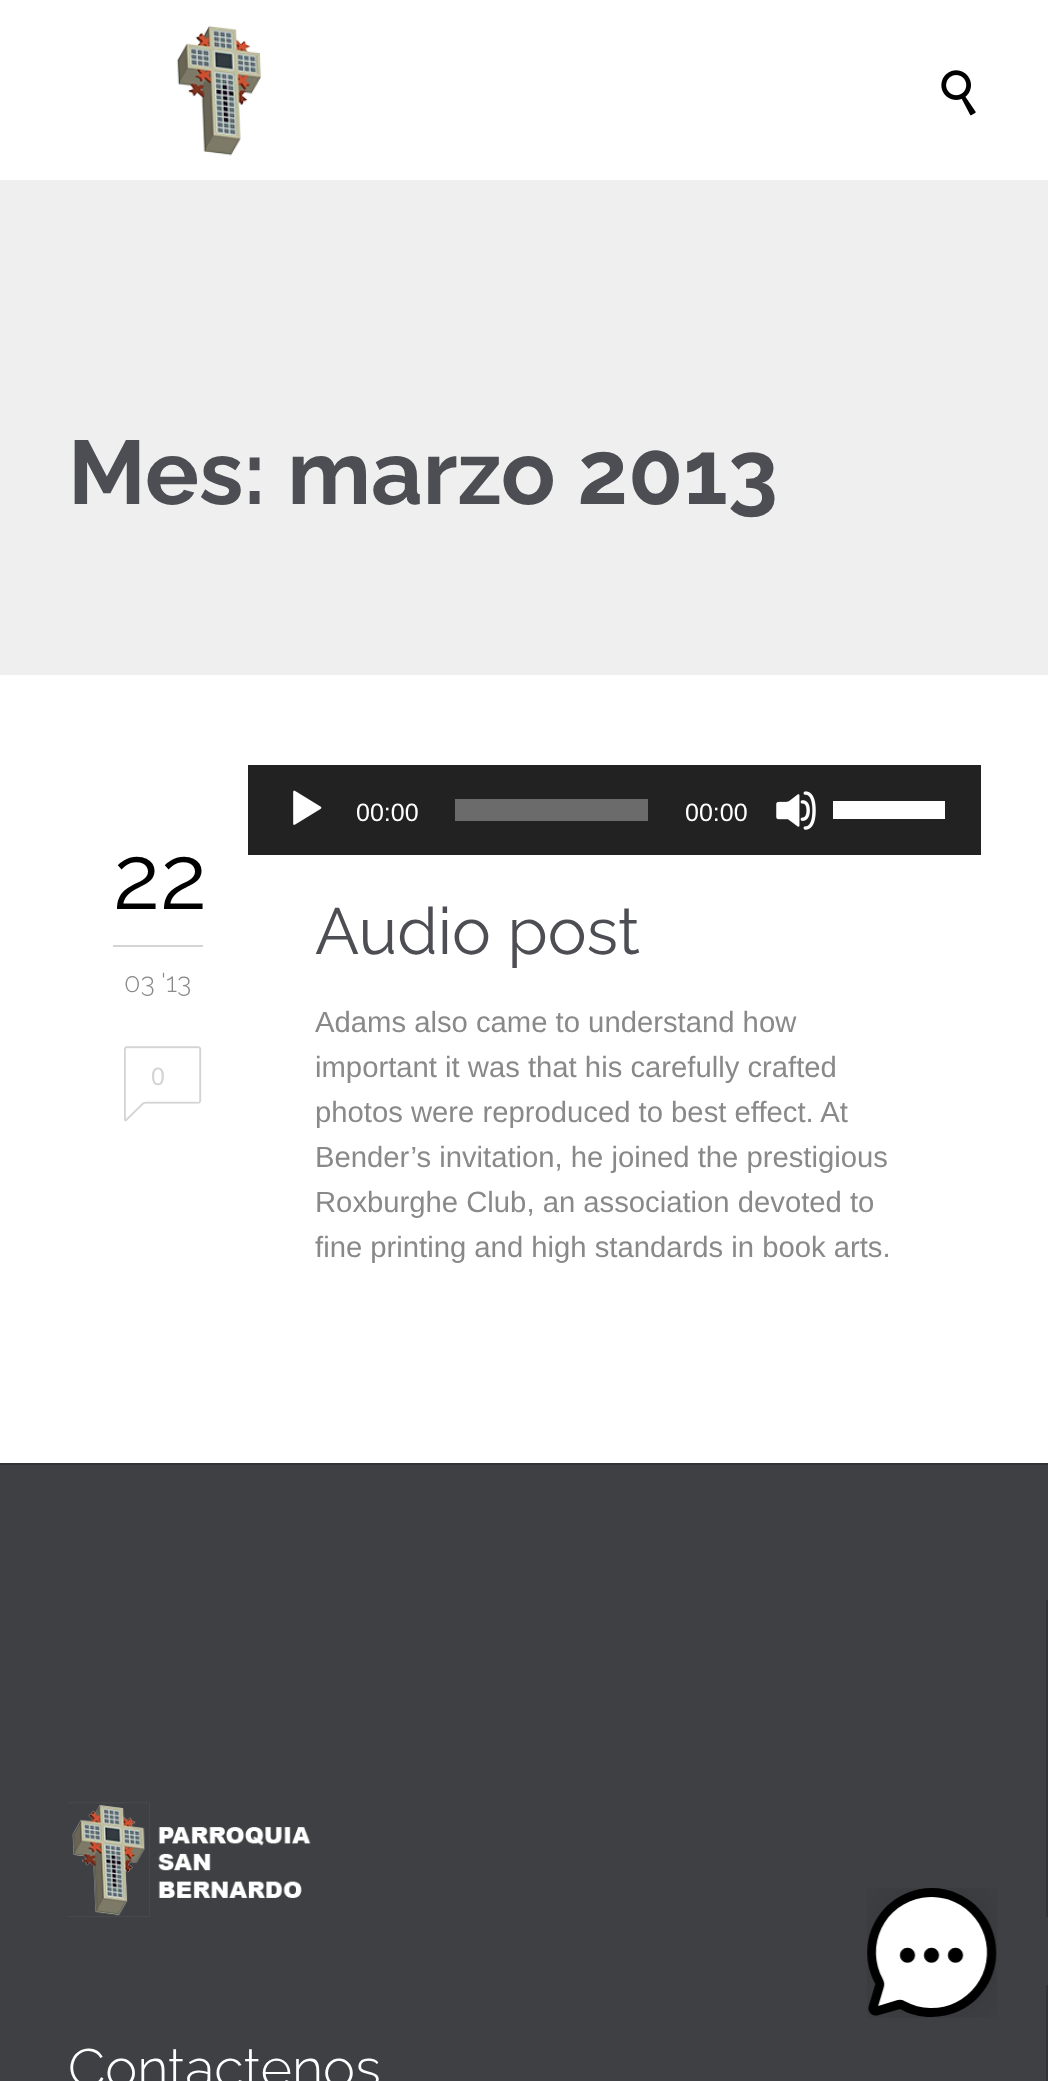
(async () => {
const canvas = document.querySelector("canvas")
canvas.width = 1048
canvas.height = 2081
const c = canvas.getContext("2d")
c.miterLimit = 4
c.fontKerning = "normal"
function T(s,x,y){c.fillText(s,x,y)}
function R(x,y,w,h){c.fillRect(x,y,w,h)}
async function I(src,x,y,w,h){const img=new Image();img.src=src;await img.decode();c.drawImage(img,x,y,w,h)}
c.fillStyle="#efefef"
R(0,0,1048,2081)
c.fillStyle="#fff"
R(0,0,1048,180)
await I("1.png",176,25,86,131)
await I("2.png",941,70,35,46)
c.font="bold 90px Raleway"
c.fillStyle="#4d4e53"
T("Mes: marzo 2013",68,504)
c.fillStyle="#fff"
R(0,675,1048,788)
c.fillStyle="#d4d4d4"
R(113,945,90,2)
c.font="90px Raleway"
c.fillStyle="#000"
T("22",113,909)
c.font="300 27px Raleway"
c.fillStyle="#898989"
T("03 '13",124,992)
c.font="25px Liberation Sans"
c.fillStyle="#d4d4d4"
T("0",151,1085)
await I("3.png",124,1046,78,76)
c.fillStyle="#222"
R(248,765,733,90)
await I("4.png",293,790,29,35)
c.fillStyle="#fff"
T("00:00",356,821)
c.fillStyle="#6b6b6b"
R(455,799,193,22)
c.fillStyle="#fff"
T("00:00",685,821)
await I("5.png",776,791,40,39)
R(833,801,112,18)
c.font="65.25px Raleway"
c.fillStyle="#4d4e53"
T("Audio post",315,954)
c.font="29.25px Liberation Sans"
c.fillStyle="#898989"
T("Adams also came to understand how",315,1032)
T("important it was that his carefully crafted",315,1077)
T("photos were reproduced to best effect. At",315,1122)
T("Bender’s invitation, he joined the prestigious",315,1167)
T("Roxburghe Club, an association devoted to",315,1212)
T("fine printing and high standards in book arts.",315,1257)
c.fillStyle="#3e4043"
R(0,1465,1048,616)
c.fillStyle="#323336"
R(0,1463,1048,2)
R(1046,1600,2,317)
await I("6.png",67,1802,244,115)
R(1046,1985,2,96)
c.font="300 54px Raleway"
c.fillStyle="#fff"
T("Contactenos",68,2087)
await I("7.png",867,1888,130,130)
})()
